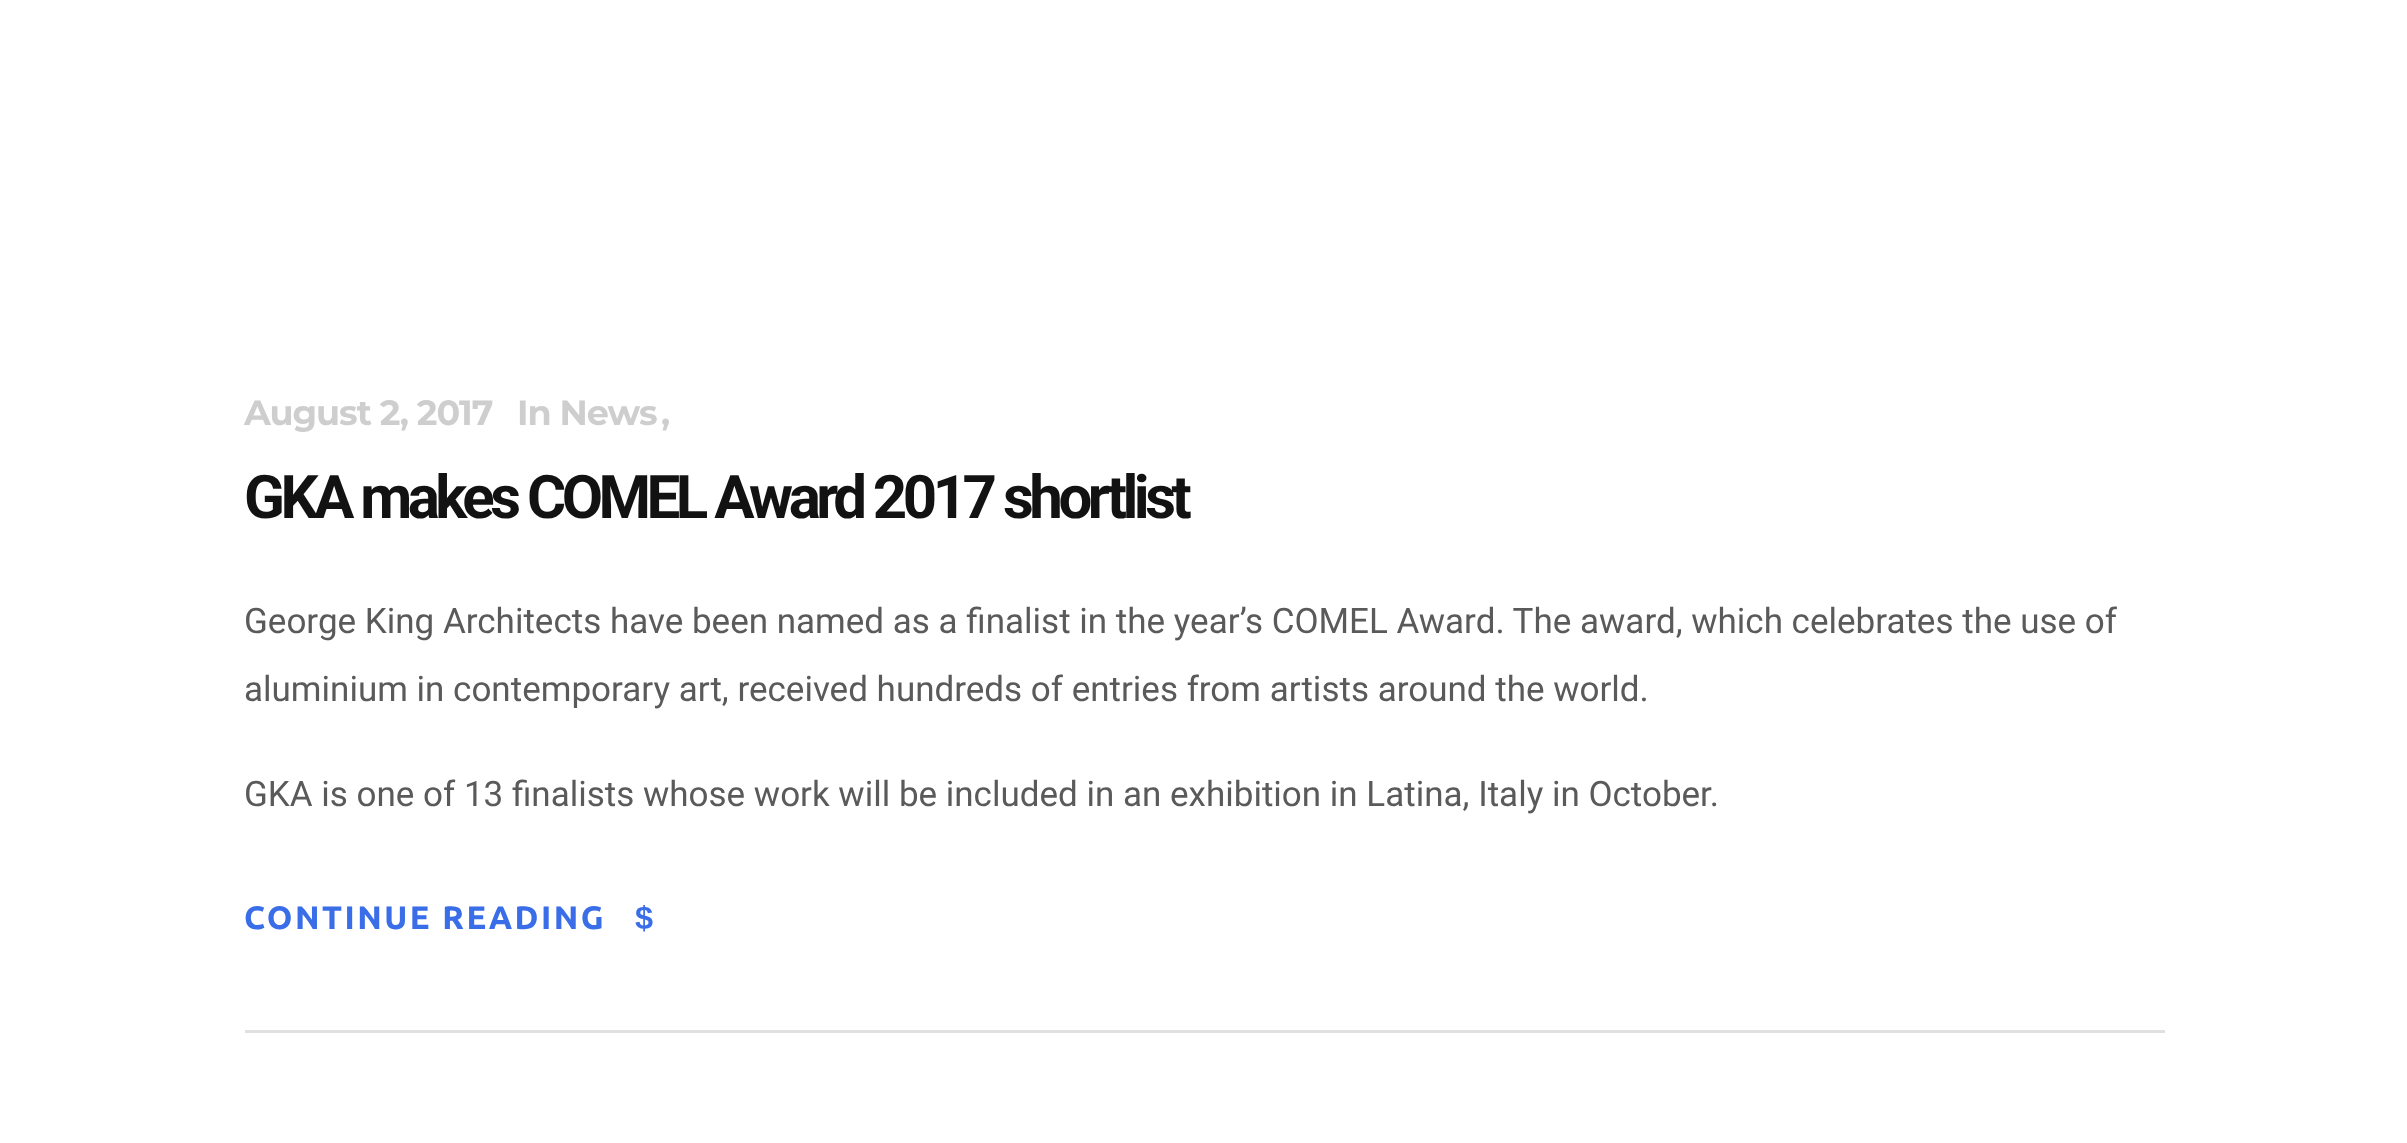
(async () => {
const canvas = document.querySelector("canvas")
canvas.width = 2407
canvas.height = 1143
const c = canvas.getContext("2d")
c.miterLimit = 4
c.fontKerning = "normal"
function T(s,x,y){c.fillText(s,x,y)}
function R(x,y,w,h){c.fillRect(x,y,w,h)}
c.fillStyle="#fff"
R(0,0,2407,1143)
c.fillStyle="#e0e0e0"
R(245,1030,1920,3)
c.letterSpacing="-1px"
c.font="bold 35px Montserrat"
c.fillStyle="#cecece"
T("August 2, 2017",244,425)
T("In News",517,425)
T(",",661,425)
c.letterSpacing="-4.5px"
c.font="bold 60px Roboto"
c.fillStyle="#121212"
T("GKA makes COMEL Award 2017 shortlist",244,518)
c.letterSpacing="0px"
c.font="35px Roboto"
c.fillStyle="#5a5a5a"
T("George King Architects have been named as a finalist in the year’s COMEL Award. The award, which celebrates the use of",244,633)
T("aluminium in contemporary art, received hundreds of entries from artists around the world.",244,701)
T("GKA is one of 13 finalists whose work will be included in an exhibition in Latina, Italy in October.",244,806)
c.letterSpacing="2.5px"
c.font="bold 32.5px Ubuntu"
c.fillStyle="#3a6ee8"
T("CONTINUE READING",244,929)
c.font="bold 32.5px Liberation Sans"
T("$",635,929)
})()
